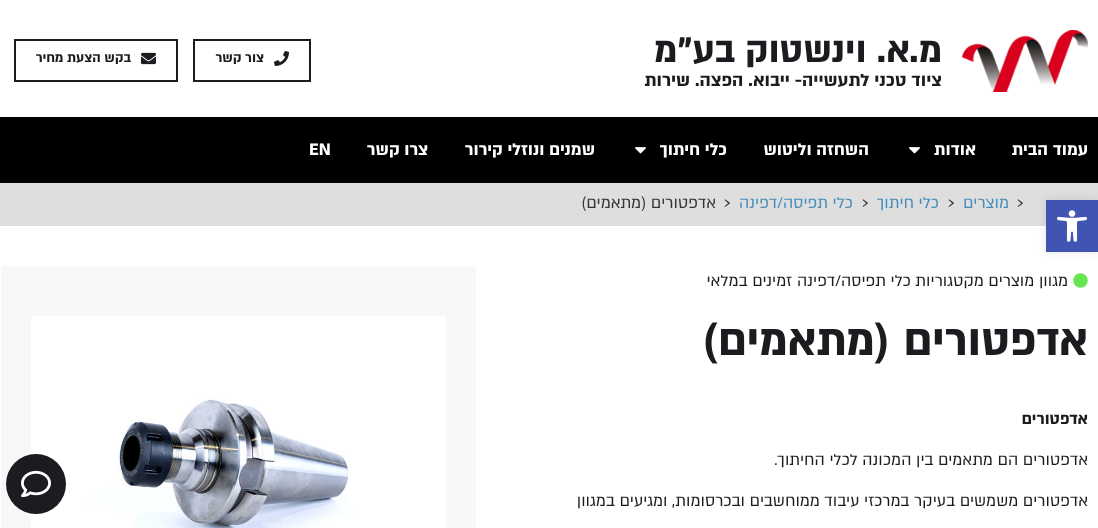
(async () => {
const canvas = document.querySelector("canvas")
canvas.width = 1098
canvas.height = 528
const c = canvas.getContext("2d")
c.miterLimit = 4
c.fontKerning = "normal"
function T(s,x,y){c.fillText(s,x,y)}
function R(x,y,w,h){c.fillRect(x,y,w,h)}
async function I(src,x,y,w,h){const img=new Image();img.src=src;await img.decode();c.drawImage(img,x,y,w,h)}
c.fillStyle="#fff"
R(0,0,1098,528)
await I("1.png",962,30,126,62)
c.direction="rtl"
c.font="bold 41px 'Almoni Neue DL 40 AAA'"
c.fillStyle="#1c1c20"
T("מ.א. וינשטוק בע\"מ",942,62)
c.font="bold 20px 'Almoni Neue DL 40 AAA'"
T("ציוד טכני לתעשייה- ייבוא. הפצה. שירות",942,86)
c.strokeStyle="#1c1c20"
c.lineWidth=2
c.strokeRect(194,40,116,41)
await I("2.png",274,51,15,15)
c.font="bold 15px 'Almoni Neue DL 40 AAA'"
T("צור קשר",264,62)
c.strokeRect(15,40,162,41)
await I("3.png",141,52,15,13)
T("בקש הצעת מחיר",131,62)
c.fillStyle="#000"
R(0,117,1098,66)
c.font="bold 19px 'Almoni Neue DL 40 AAA'"
c.fillStyle="#fff"
T("עמוד הבית",1088,155)
T("אודות",976,155)
await I("4.png",909,147,11,7)
T("השחזה וליטוש",869,155)
T("כלי חיתוך",727,155)
await I("4.png",635,147,11,7)
T("שמנים ונוזלי קירור",595,155)
T("צרו קשר",428,155)
c.direction="ltr"
T("EN",309,155)
c.fillStyle="#dedede"
R(0,183,1098,43)
c.font="30px 'Almoni Neue DL 40 AAA'"
c.fillStyle="#333"
T("›",1016,211)
c.direction="rtl"
c.font="18px 'Almoni Neue DL 40 AAA'"
c.fillStyle="#448ebb"
T("מוצרים",1009,208)
c.direction="ltr"
c.font="30px 'Almoni Neue DL 40 AAA'"
c.fillStyle="#333"
T("›",947,211)
c.direction="rtl"
c.font="18px 'Almoni Neue DL 40 AAA'"
c.fillStyle="#448ebb"
T("כלי חיתוך",939,208)
c.direction="ltr"
c.font="30px 'Almoni Neue DL 40 AAA'"
c.fillStyle="#333"
T("›",861,211)
c.direction="rtl"
c.font="18px 'Almoni Neue DL 40 AAA'"
c.fillStyle="#448ebb"
T("כלי תפיסה/דפינה",853,208)
c.direction="ltr"
c.font="30px 'Almoni Neue DL 40 AAA'"
c.fillStyle="#333"
T("›",723,211)
c.direction="rtl"
c.font="18px 'Almoni Neue DL 40 AAA'"
T("אדפטורים (מתאמים)",716,208)
c.fillStyle="#0000001a"
c.filter="blur(5px)"
c.beginPath()
c.rect(1046,200,52,52)
c.fill()
c.filter="none"
c.fillStyle="#4054b2"
R(1046,200,52,52)
await I("5.png",1057,210,30,32)
await I("6.png",1073,273,15,15)
c.fillStyle="#1c1c20"
T("מגוון מוצרים מקטגוריות",1068,286)
T("כלי תפיסה/דפינה",911,286)
T("זמינים במלאי",792,286)
c.wordSpacing="1px"
c.font="bold 50px 'Almoni Neue DL 40 AAA'"
T("אדפטורים (מתאמים)",1088,355)
c.wordSpacing="0px"
c.font="bold 18px 'Almoni Neue DL 40 AAA'"
T("אדפטורים",1088,424)
c.font="18px 'Almoni Neue DL 40 AAA'"
T("אדפטורים הם מתאמים בין המכונה לכלי החיתוך.",1088,465)
T("אדפטורים משמשים בעיקר במרכזי עיבוד ממוחשבים ובכרסומות, ומגיעים במגוון",1088,506)
c.fillStyle="#f8f8f8"
R(1,266,475,262)
await I("7.png",31,316,415,212)
c.fillStyle="#1c1c20"
c.beginPath()
c.arc(36,484,30,0,7)
c.fill()
await I("8.png",21,470,30,28)
})()
